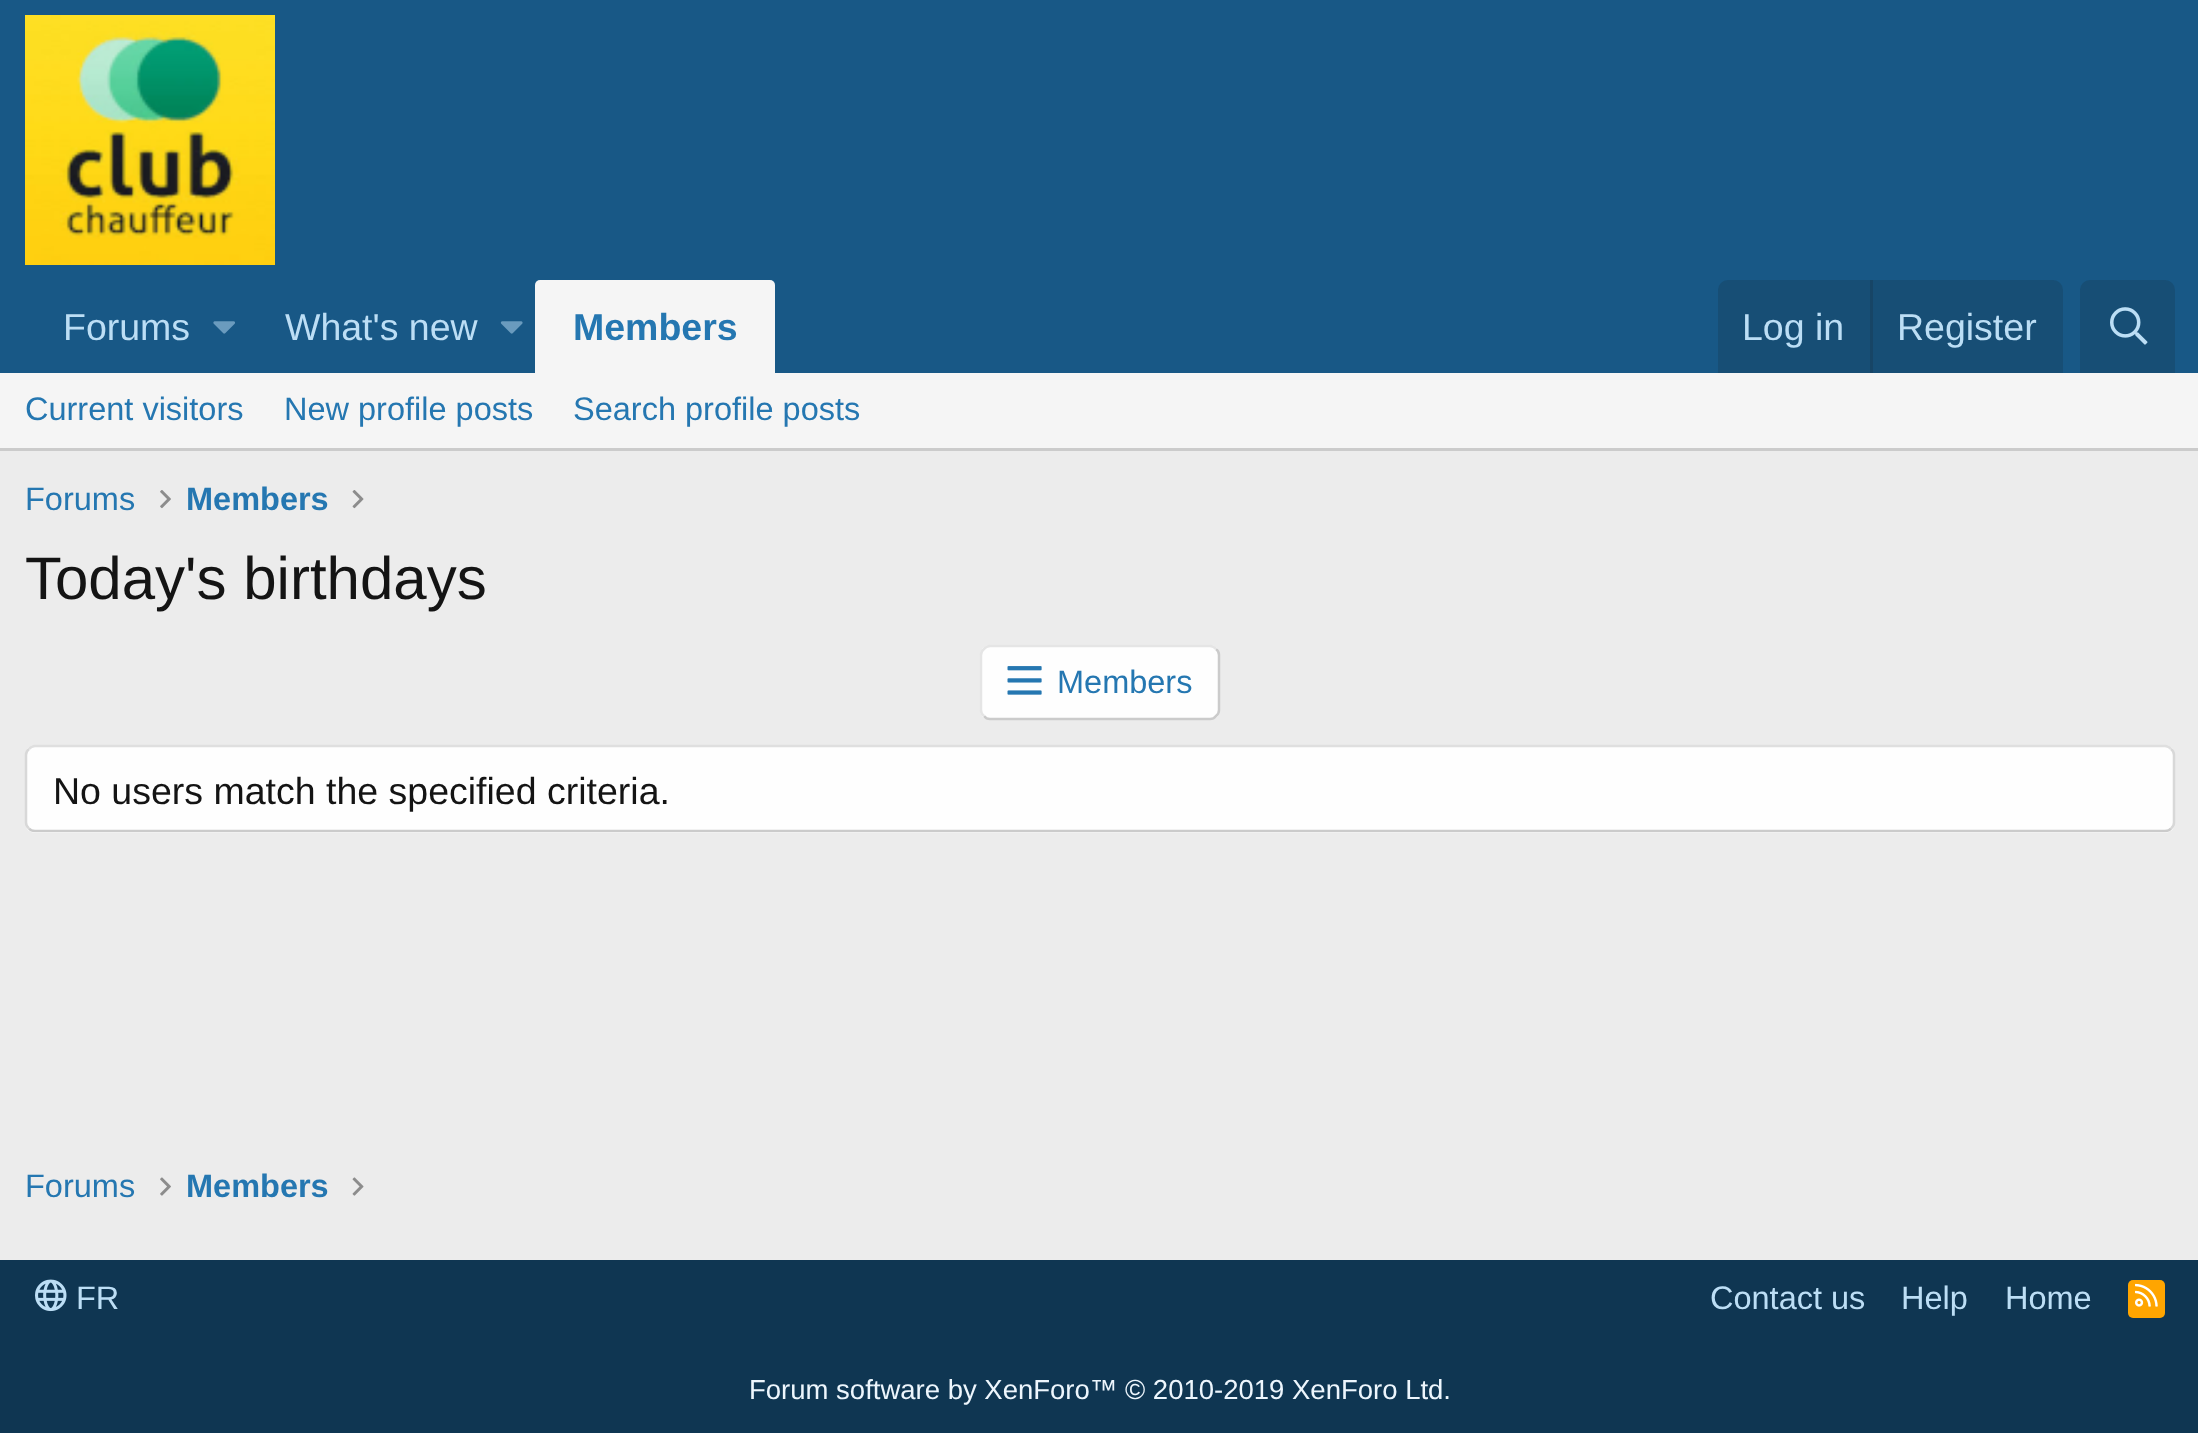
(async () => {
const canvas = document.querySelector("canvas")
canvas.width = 2198
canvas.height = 1433
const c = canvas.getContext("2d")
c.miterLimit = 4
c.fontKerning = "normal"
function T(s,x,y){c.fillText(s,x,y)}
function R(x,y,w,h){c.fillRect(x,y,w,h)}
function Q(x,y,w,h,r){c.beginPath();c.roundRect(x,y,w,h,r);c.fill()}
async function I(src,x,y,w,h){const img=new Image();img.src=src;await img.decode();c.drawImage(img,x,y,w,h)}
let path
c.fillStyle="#ececec"
R(0,0,2198,1433)
c.fillStyle="#185886"
R(0,0,2198,373)
await I("1.png",25,15,250,250)
c.font="37.5px Liberation Sans"
c.fillStyle="#bcdef5"
T("Forums",63,340)
await I("2.png",213,321,22,13)
T("What's new",285,340)
await I("3.png",500,321,23,13)
c.fillStyle="#f5f5f5"
c.beginPath()
c.roundRect(535,280,240,93,[5,5,0,0])
c.fill()
c.font="bold 37.5px Liberation Sans"
c.fillStyle="#2577b1"
T("Members",573,340)
c.fillStyle="#174e75"
c.beginPath()
c.roundRect(1718,280,345,93,[10,10,0,0])
c.fill()
c.font="37.5px Liberation Sans"
c.fillStyle="#bcdef5"
T("Log in",1742,340)
c.fillStyle="#174566"
R(1870,280,3,93)
c.fillStyle="#bcdef5"
T("Register",1897,340)
c.fillStyle="#174e75"
c.beginPath()
c.roundRect(2080,280,95,93,[10,10,0,0])
c.fill()
await I("4.png",2110,307,38,38)
c.fillStyle="#f5f5f5"
R(0,373,2198,75)
c.fillStyle="#cbcbcb"
R(0,448,2198,3)
c.font="32.5px Liberation Sans"
c.fillStyle="#2577b1"
T("Current visitors",25,420)
T("New profile posts",284,420)
T("Search profile posts",573,420)
T("Forums",25,510)
await I("5.png",160,490,11,19)
c.font="bold 32.5px Liberation Sans"
T("Members",186,510)
await I("6.png",352,490,12,19)
c.font="60px Liberation Sans"
c.fillStyle="#141414"
T("Today's birthdays",25,599)
c.fillStyle="#fefefe"
Q(980,645,240,75,10)
path = new Path2D("M1216 649c2 1.5 3 3.5 3 6v55c0 2.5-1 4.5-3 6c-1.5 2-3.5 3-6 3h-220c-2.5 0-4.5-1-6-3")
c.strokeStyle="#cbcbcb"
c.lineWidth=2.5
c.stroke(path)
path = new Path2D("M984 716c-2-1.5-3-3.5-3-6v-55c0-2.5 1-4.5 3-6c1.5-2 3.5-3 6-3h220c2.5 0 4.5 1 6 3")
c.strokeStyle="#e5e5e5"
c.stroke(path)
await I("7.png",1007,666,35,29)
c.font="32.5px Liberation Sans"
c.fillStyle="#2577b1"
T("Members",1057,693)
c.fillStyle="#fefefe"
Q(25,745,2150,88,10)
path = new Path2D("M29 749c1.5-2 3.5-3 6-3h2130c2.5 0 4.5 1 6 3")
c.strokeStyle="#dfdfdf"
c.stroke(path)
path = new Path2D("M2171 749c2 1.5 3 3.5 3 6v67.5c0 2.5-1 4.5-3 6")
c.strokeStyle="#d8d8d8"
c.stroke(path)
path = new Path2D("M2171 828.5c-1.5 2-3.5 2.5-6 2.5h-2130c-2.5 0-4.5-.5-6-2.5")
c.strokeStyle="#cbcbcb"
c.stroke(path)
path = new Path2D("M29 828.5c-2-1.5-3-3.5-3-6v-67.5c0-2.5 1-4.5 3-6")
c.strokeStyle="#d8d8d8"
c.stroke(path)
c.font="37.5px Liberation Sans"
c.fillStyle="#141414"
T("No users match the specified criteria.",53,804)
c.font="32.5px Liberation Sans"
c.fillStyle="#2577b1"
T("Forums",25,1197)
await I("8.png",160,1177,11,19)
c.font="bold 32.5px Liberation Sans"
T("Members",186,1197)
await I("9.png",352,1177,12,19)
c.fillStyle="#0f3652"
R(0,1260,2198,173)
await I("10.png",35,1279,32,33)
c.font="32.5px Liberation Sans"
c.fillStyle="#bcdef5"
T("FR",76,1309)
T("Contact us",1710,1309)
T("Help",1901,1309)
T("Home",2005,1309)
c.fillStyle="#ffa500"
Q(2128,1280,37,38,5)
await I("11.png",2135,1283,23,24)
c.font="27.5px Liberation Sans"
c.fillStyle="#edf6fd"
T("Forum software by XenForo™ © 2010-2019 XenForo Ltd.",749,1399)
})()
